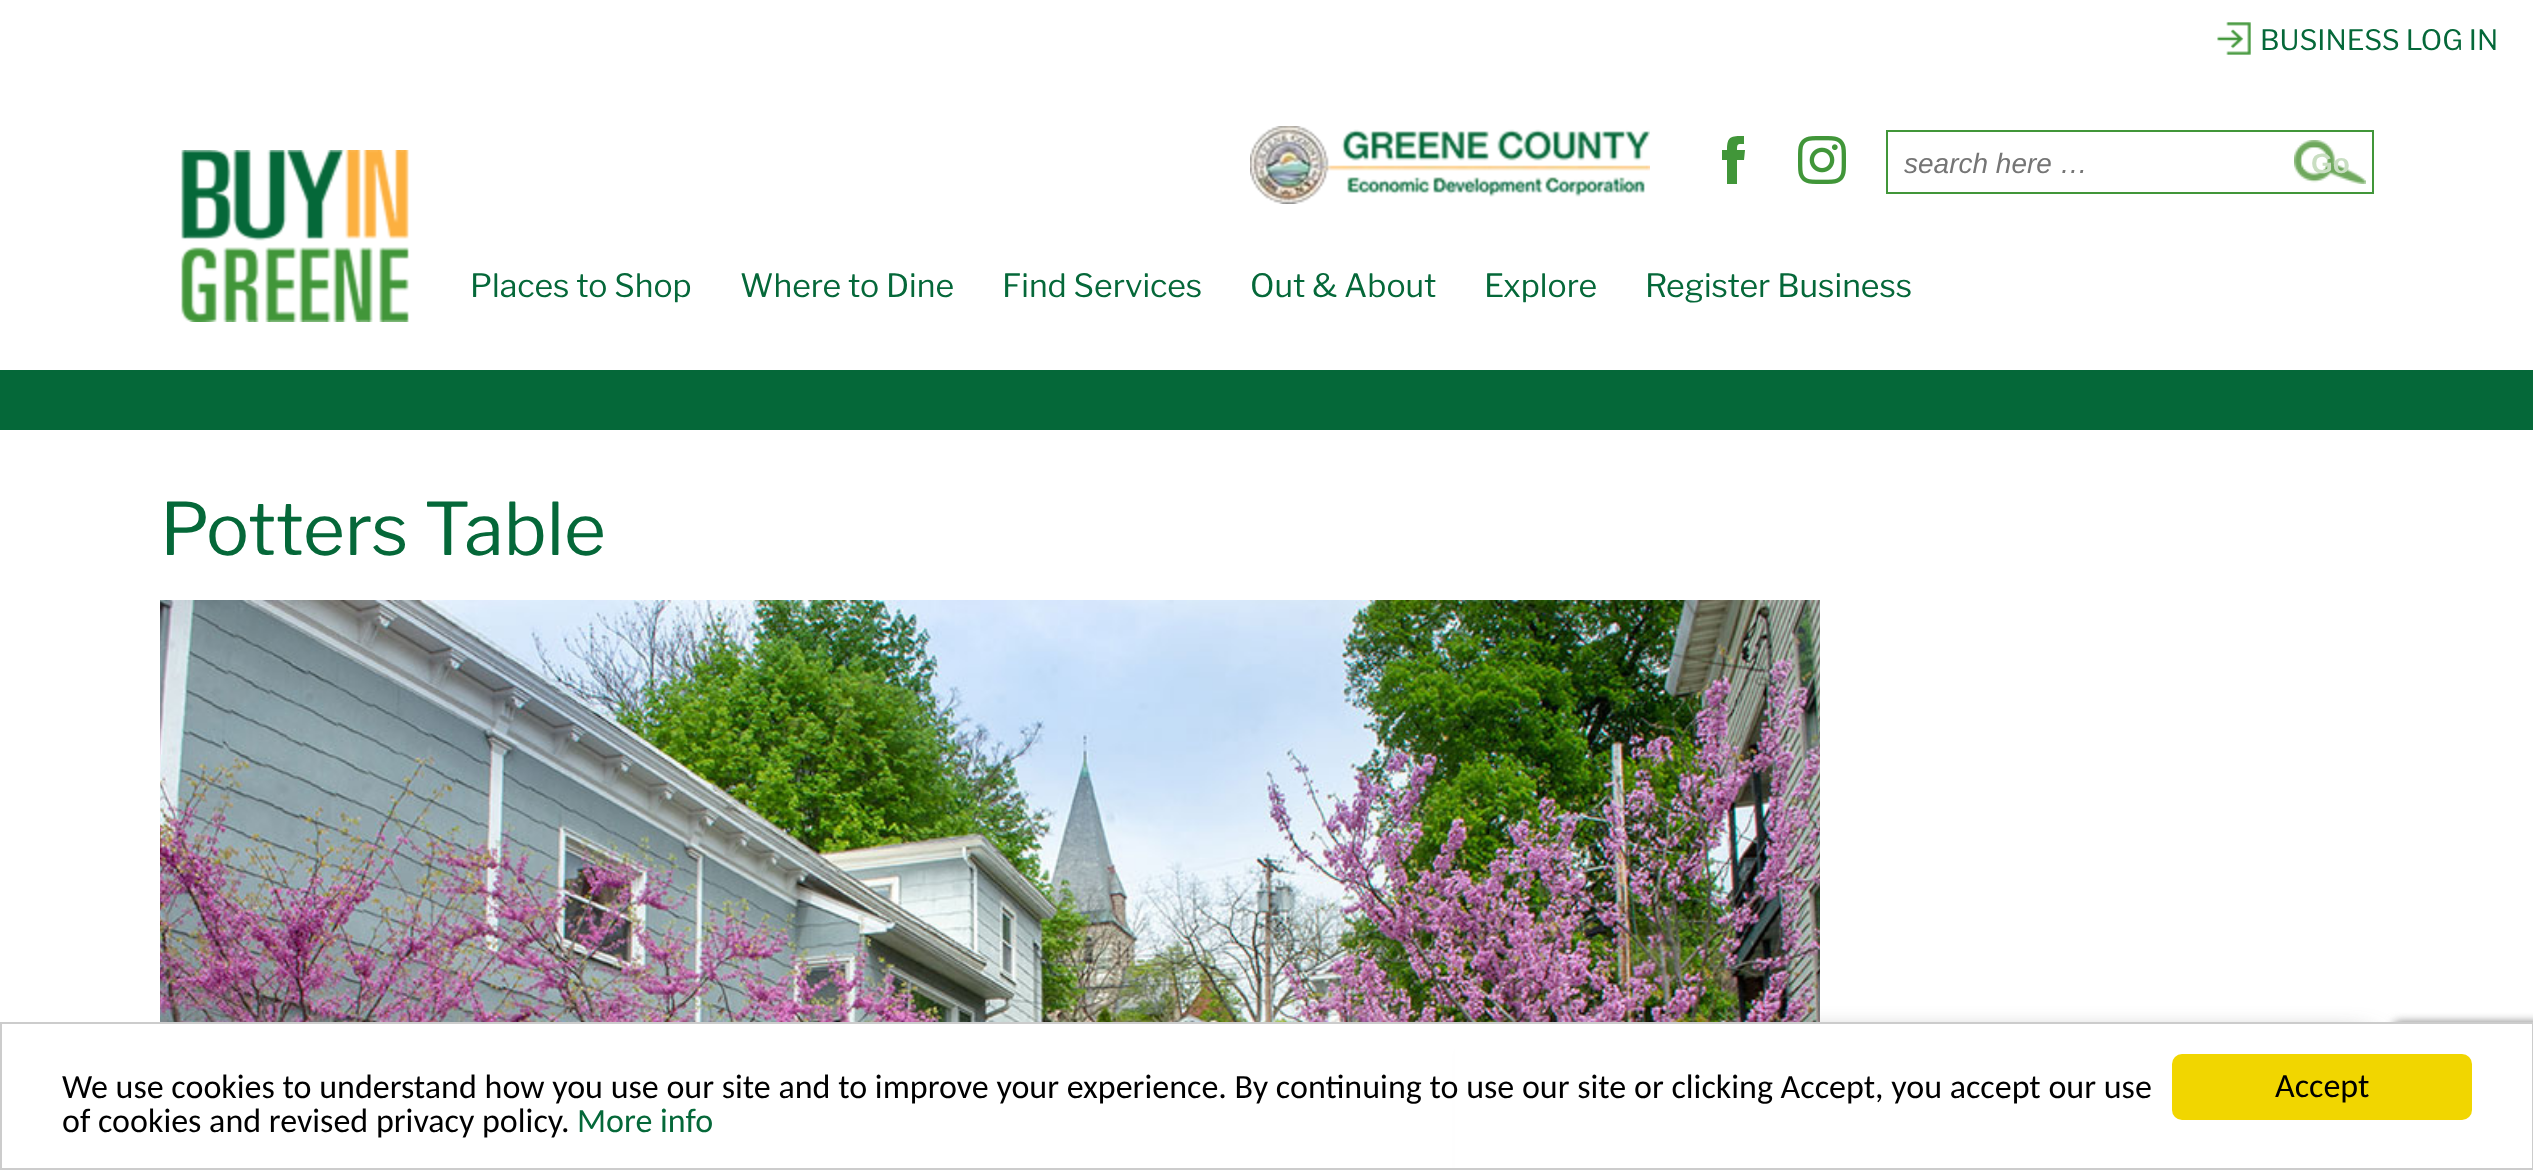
(async () => {
const canvas = document.querySelector("canvas")
canvas.width = 2533
canvas.height = 1170
const c = canvas.getContext("2d")
c.miterLimit = 4
c.fontKerning = "normal"
function T(s,x,y){c.fillText(s,x,y)}
function R(x,y,w,h){c.fillRect(x,y,w,h)}
function Q(x,y,w,h,r){c.beginPath();c.roundRect(x,y,w,h,r);c.fill()}
async function I(src,x,y,w,h){const img=new Image();img.src=src;await img.decode();c.drawImage(img,x,y,w,h)}
let path
c.fillStyle="#fff"
R(0,0,2533,1170)
c.fillStyle="#056839"
R(0,370,2533,60)
await I("1.png",2217,22,34,33)
c.font="28px Libre Franklin"
T("BUSINESS LOG IN",2260,50)
await I("2.png",1250,126,400,78)
c.fillStyle="#419639"
path = new Path2D("M1737 150c0-7 1-6 7-6v-8c-13 0-17 0-17 14h-5v10h5v24h10v-24h7l1-10z")
c.fill(path,"evenodd")
await I("3.png",1798,136,48,48)
c.strokeStyle="#419639"
c.lineWidth=2
c.strokeRect(1887,131,486,62)
c.font="italic 28px Liberation Sans"
c.fillStyle="#757575"
T("search here …",1904,173)
await I("4.png",2294,140,72,44)
c.font="bold 28px Liberation Sans"
c.fillStyle="#c9dec2"
T("Go",2311,173)
await I("5.png",181,150,228,172)
c.font="32px Libre Franklin"
c.fillStyle="#056839"
T("Places to Shop",470,297)
T("Where to Dine",740,297)
T("Find Services",1002,297)
T("Out & About",1250,297)
T("Explore",1484,297)
T("Register Business",1645,297)
c.font="72px Libre Franklin"
T("Potters Table",160,555)
await I("6.png",160,600,1660,422)
c.fillStyle="#404040"
c.filter="blur(15px)"
c.beginPath()
c.roundRect(1488,1042,886,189,16)
c.fill()
c.filter="none"
c.fillStyle="#808080"
c.filter="blur(5px)"
c.beginPath()
c.roundRect(2394,1022,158,120,4)
c.fill()
c.filter="none"
c.fillStyle="#fff"
R(1455,1024,1077,144)
c.strokeStyle="#ccc"
c.strokeRect(1,1023,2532,146)
c.font="34px Carlito"
c.fillStyle="#000"
T("We use cookies to understand how you use our site and to improve your experience. By continuing to use our site or clicking Accept, you accept our use",62,1098)
T("of cookies and revised privacy policy.",62,1132)
c.fillStyle="#056839"
T("More info",577,1132)
c.fillStyle="#f1d600"
Q(2172,1054,300,66,10)
c.fillStyle="#000"
T("Accept",2275,1097)
})()
